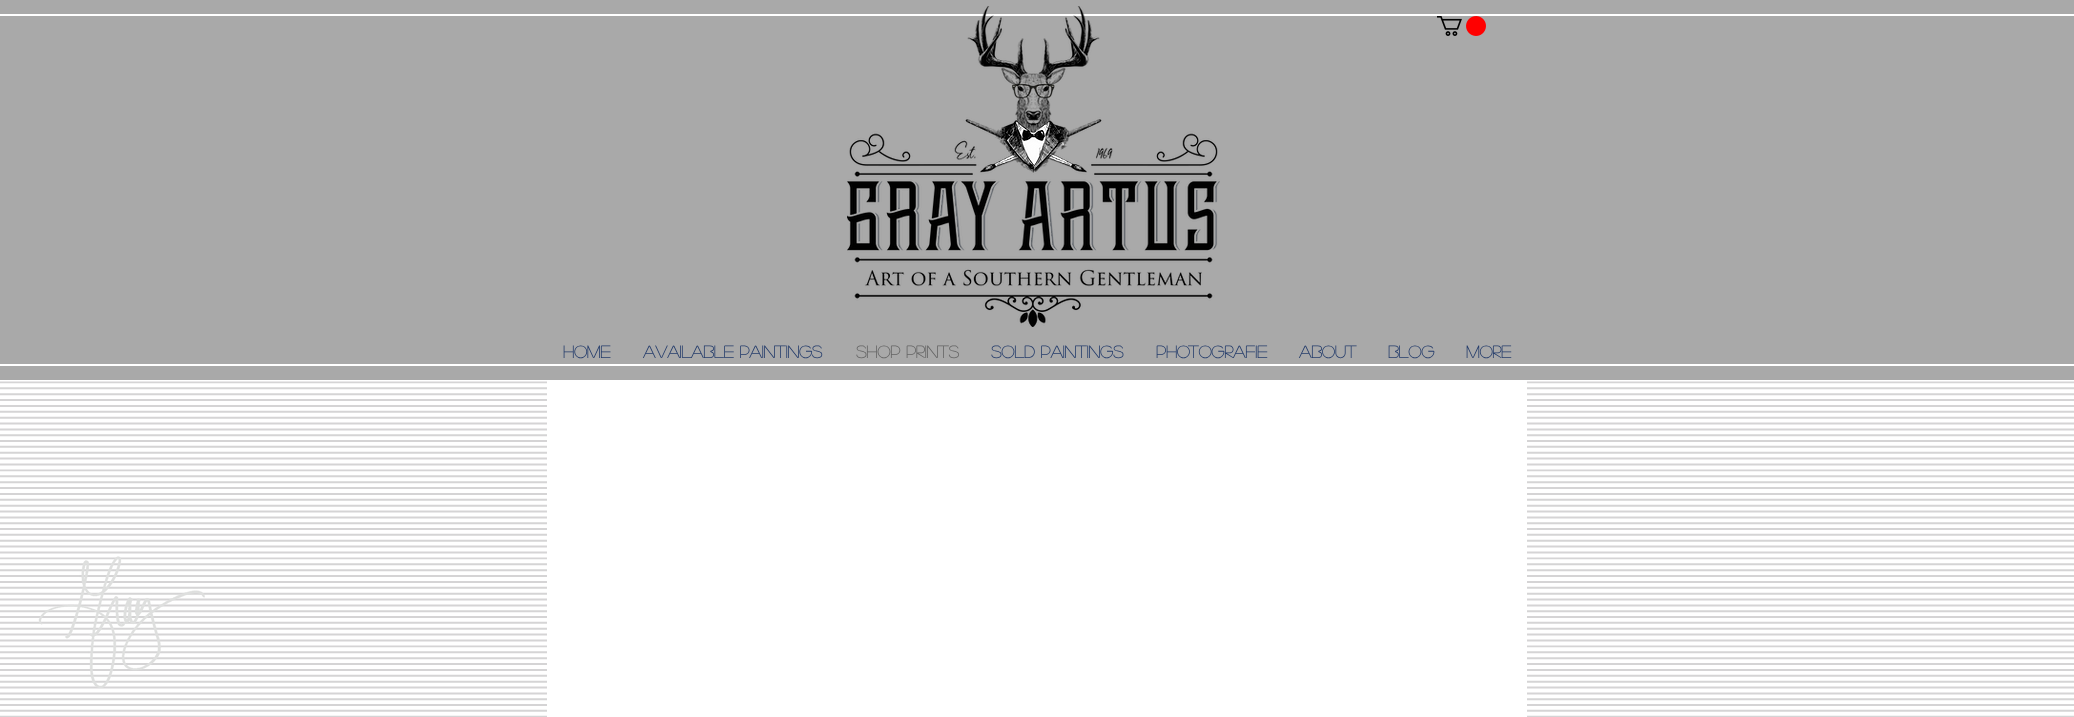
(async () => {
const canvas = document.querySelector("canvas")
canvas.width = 2074
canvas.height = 717
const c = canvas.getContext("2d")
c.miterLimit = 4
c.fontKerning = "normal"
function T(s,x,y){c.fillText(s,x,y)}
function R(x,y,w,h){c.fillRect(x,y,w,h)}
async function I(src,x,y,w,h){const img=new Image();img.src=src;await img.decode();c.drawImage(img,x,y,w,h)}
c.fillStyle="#fff"
R(0,0,2074,717)
c.fillStyle="#a9a9a9"
R(0,0,2074,380)
c.fillStyle="#fff"
R(0,14,2074,2)
R(0,364,2074,2)
await I("1.png",847,6,373,321)
await I("2.png",1437,16,49,20)
c.font="bold 17px 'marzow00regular'"
c.fillStyle="#243c6b"
T("Home",563,358)
T("AVAILABLE PAINTINGS",643,358)
c.fillStyle="#656565"
T("Shop Prints",856,358)
c.fillStyle="#243c6b"
T("SOLD PAINTINGS",991,358)
T("PHOTOGRAFIE",1156,358)
T("ABOUT",1299,358)
T("Blog",1388,358)
T("More",1466,358)
await I("4.png",0,381,2074,336)
await I("3.png",38,556,167,132)
c.fillStyle="#fff"
R(547,381,980,336)
})()
